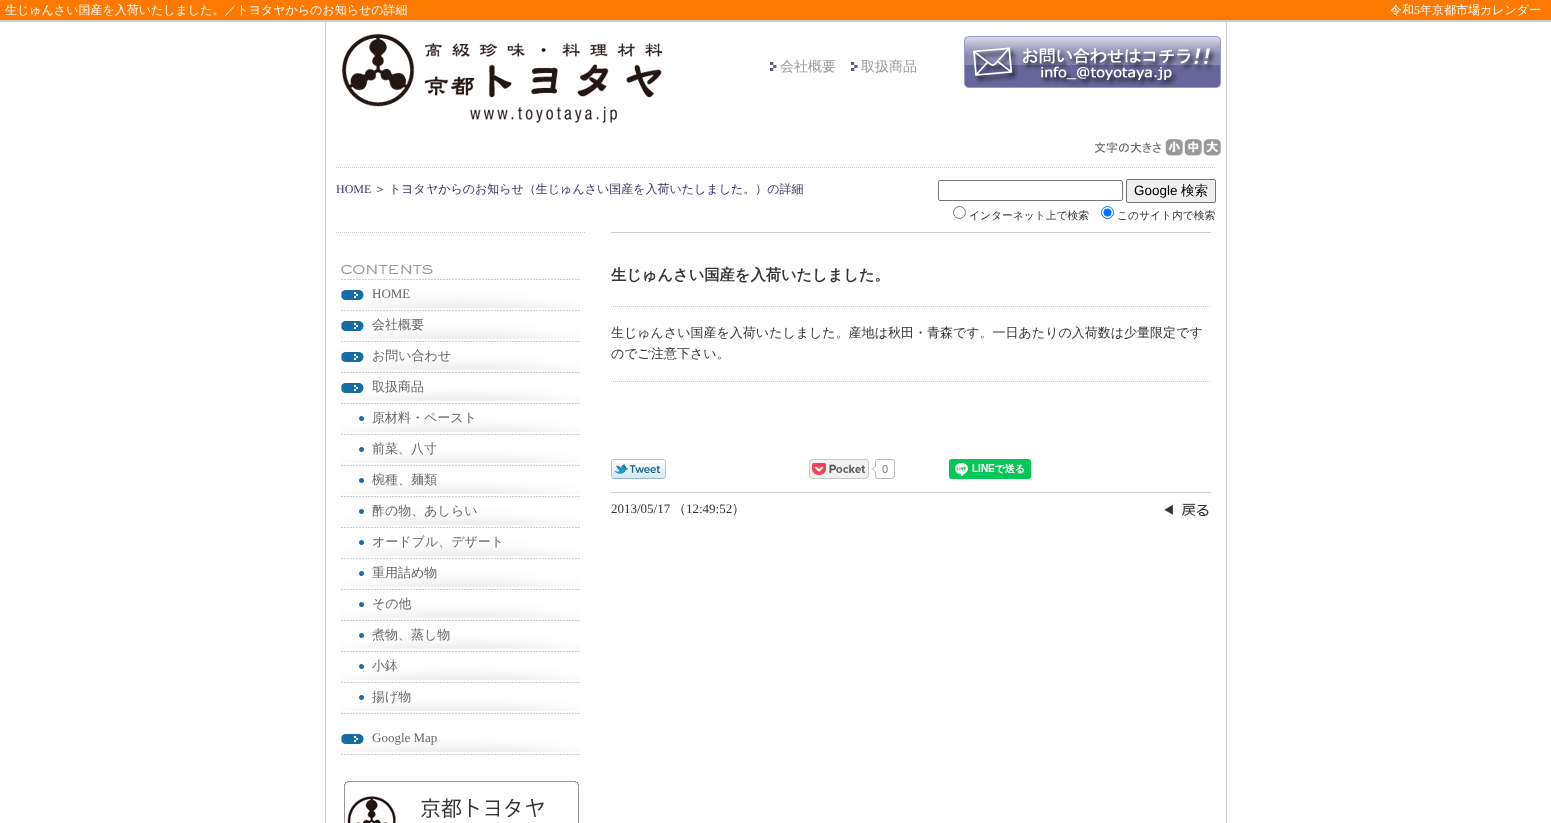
(async () => {
const canvas = document.querySelector("canvas")
canvas.width = 1551
canvas.height = 823
const c = canvas.getContext("2d")
c.miterLimit = 4
c.fontKerning = "normal"
function T(s,x,y){c.fillText(s,x,y)}
function R(x,y,w,h){c.fillRect(x,y,w,h)}
async function I(src,x,y,w,h){const img=new Image();img.src=src;await img.decode();c.drawImage(img,x,y,w,h)}
let path
c.fillStyle="#fff"
R(0,0,1551,823)
c.fillStyle="#ff7800"
R(0,0,1551,20)
c.fillStyle="#ccc"
R(0,20,1551,2)
c.font="500 12px WenQuanYi Zen Hei"
c.fillStyle="#fff"
T("生じゅんさい国産を入荷いたしました。／トヨタヤからのお知らせの詳細",5,14)
T("令和",1390,14)
c.font="12px Liberation Serif"
T("5",1414,14)
c.font="500 12px WenQuanYi Zen Hei"
T("年京都市場カレンダー",1420,14)
c.fillStyle="#ccc"
R(1226,22,1,801)
R(325,22,1,801)
await I("1.png",342,34,320,89)
await I("2.png",770,62,7,9)
c.font="500 14px WenQuanYi Zen Hei"
c.fillStyle="#999"
T("会社概要",780,71)
await I("2.png",851,62,7,9)
T("取扱商品",861,71)
await I("3.png",957,35,264,56)
await I("4.png",1095,142,66,11)
await I("5.png",1165,139,18,17)
await I("6.png",1184,139,18,17)
await I("7.png",1203,139,18,17)
path = new Path2D("M336 167.5h880")
c.strokeStyle="#ccc"
c.setLineDash([1,1])
c.stroke(path)
c.font="12px Liberation Serif"
c.fillStyle="#336"
T("HOME",336,193)
c.font="500 12px WenQuanYi Zen Hei"
c.fillStyle="#333"
T("＞",374,193)
c.fillStyle="#336"
T("トヨタヤからのお知らせ（生じゅんさい国産を入荷いたしました。）の詳細",389,193)
c.beginPath()
c.roundRect(938.5,180.5,184,20,1.5)
c.strokeStyle="#767676"
c.setLineDash([])
c.stroke()
c.fillStyle="#efefef"
c.beginPath()
c.roundRect(1126.5,179.5,89,23,1.5)
c.fill()
c.stroke()
c.font="13.5px Liberation Sans"
c.fillStyle="#000"
T("Google",1134,195)
c.font="500 13.5px WenQuanYi Zen Hei"
T("検索",1181,195)
c.beginPath()
c.arc(959.5,212.5,6,0,7)
c.stroke()
c.font="500 10.75px WenQuanYi Zen Hei"
c.fillStyle="#333"
T("インターネット上で検索",969,219)
c.beginPath()
c.arc(1107.5,212.5,6,0,7)
c.strokeStyle="#0075ff"
c.stroke()
c.fillStyle="#0075ff"
c.beginPath()
c.arc(1107.5,212.5,4,0,7)
c.fill()
c.fillStyle="#333"
T("このサイト内で検索",1117,219)
path = new Path2D("M336 232.5h250")
c.strokeStyle="#ccc"
c.setLineDash([1,1])
c.stroke(path)
await I("8.png",341,264,239,16)
await I("9.png",340,288,240,23)
c.font="13px Liberation Serif"
c.fillStyle="#666"
T("HOME",372,298)
await I("9.png",340,319,240,23)
c.font="500 13px WenQuanYi Zen Hei"
T("会社概要",372,329)
await I("9.png",340,350,240,23)
T("お問い合わせ",372,360)
await I("9.png",340,381,240,23)
T("取扱商品",372,391)
await I("10.png",341,416,239,19)
T("原材料・ペースト",372,422)
await I("10.png",341,447,239,19)
T("前菜、八寸",372,453)
await I("10.png",341,478,239,19)
T("椀種、麺類",372,484)
await I("10.png",341,509,239,19)
T("酢の物、あしらい",372,515)
await I("10.png",341,540,239,19)
T("オードブル、デザート",372,546)
await I("10.png",341,571,239,19)
T("重用詰め物",372,577)
await I("10.png",341,602,239,19)
T("その他",372,608)
await I("10.png",341,633,239,19)
T("煮物、蒸し物",372,639)
await I("10.png",341,664,239,19)
T("小鉢",372,670)
await I("10.png",341,695,239,19)
T("揚げ物",372,701)
await I("9.png",340,732,240,23)
c.font="13px Liberation Serif"
T("Google Map",372,742)
await I("11.png",344,781,235,42)
c.fillStyle="#ccc"
R(611,232,600,1)
c.font="bold 15.25px WenQuanYi Zen Hei"
c.fillStyle="#333"
T("生じゅんさい国産を入荷いたしました。",611,280)
path = new Path2D("M611 306.5h600")
c.stroke(path)
c.font="500 13px WenQuanYi Zen Hei"
T("生じゅんさい国産を入荷いたしました。産地は秋田・青森です。一日あたりの入荷数は少量限定です",611,337)
T("のでご注意下さい。",611,358)
path = new Path2D("M611 381.5h600")
c.stroke(path)
await I("12.png",611,459,55,20)
await I("13.png",809,459,86,20)
await I("14.png",949,459,82,20)
c.fillStyle="#ccc"
R(611,492,600,1)
c.font="13px Liberation Serif"
c.fillStyle="#333"
T("2013/05/17",611,513)
c.font="500 13px WenQuanYi Zen Hei"
T("（",673,513)
c.font="13px Liberation Serif"
T("12:49:52",686,513)
c.font="500 13px WenQuanYi Zen Hei"
T("）",732,513)
await I("15.png",1161,499,48,20)
})()
